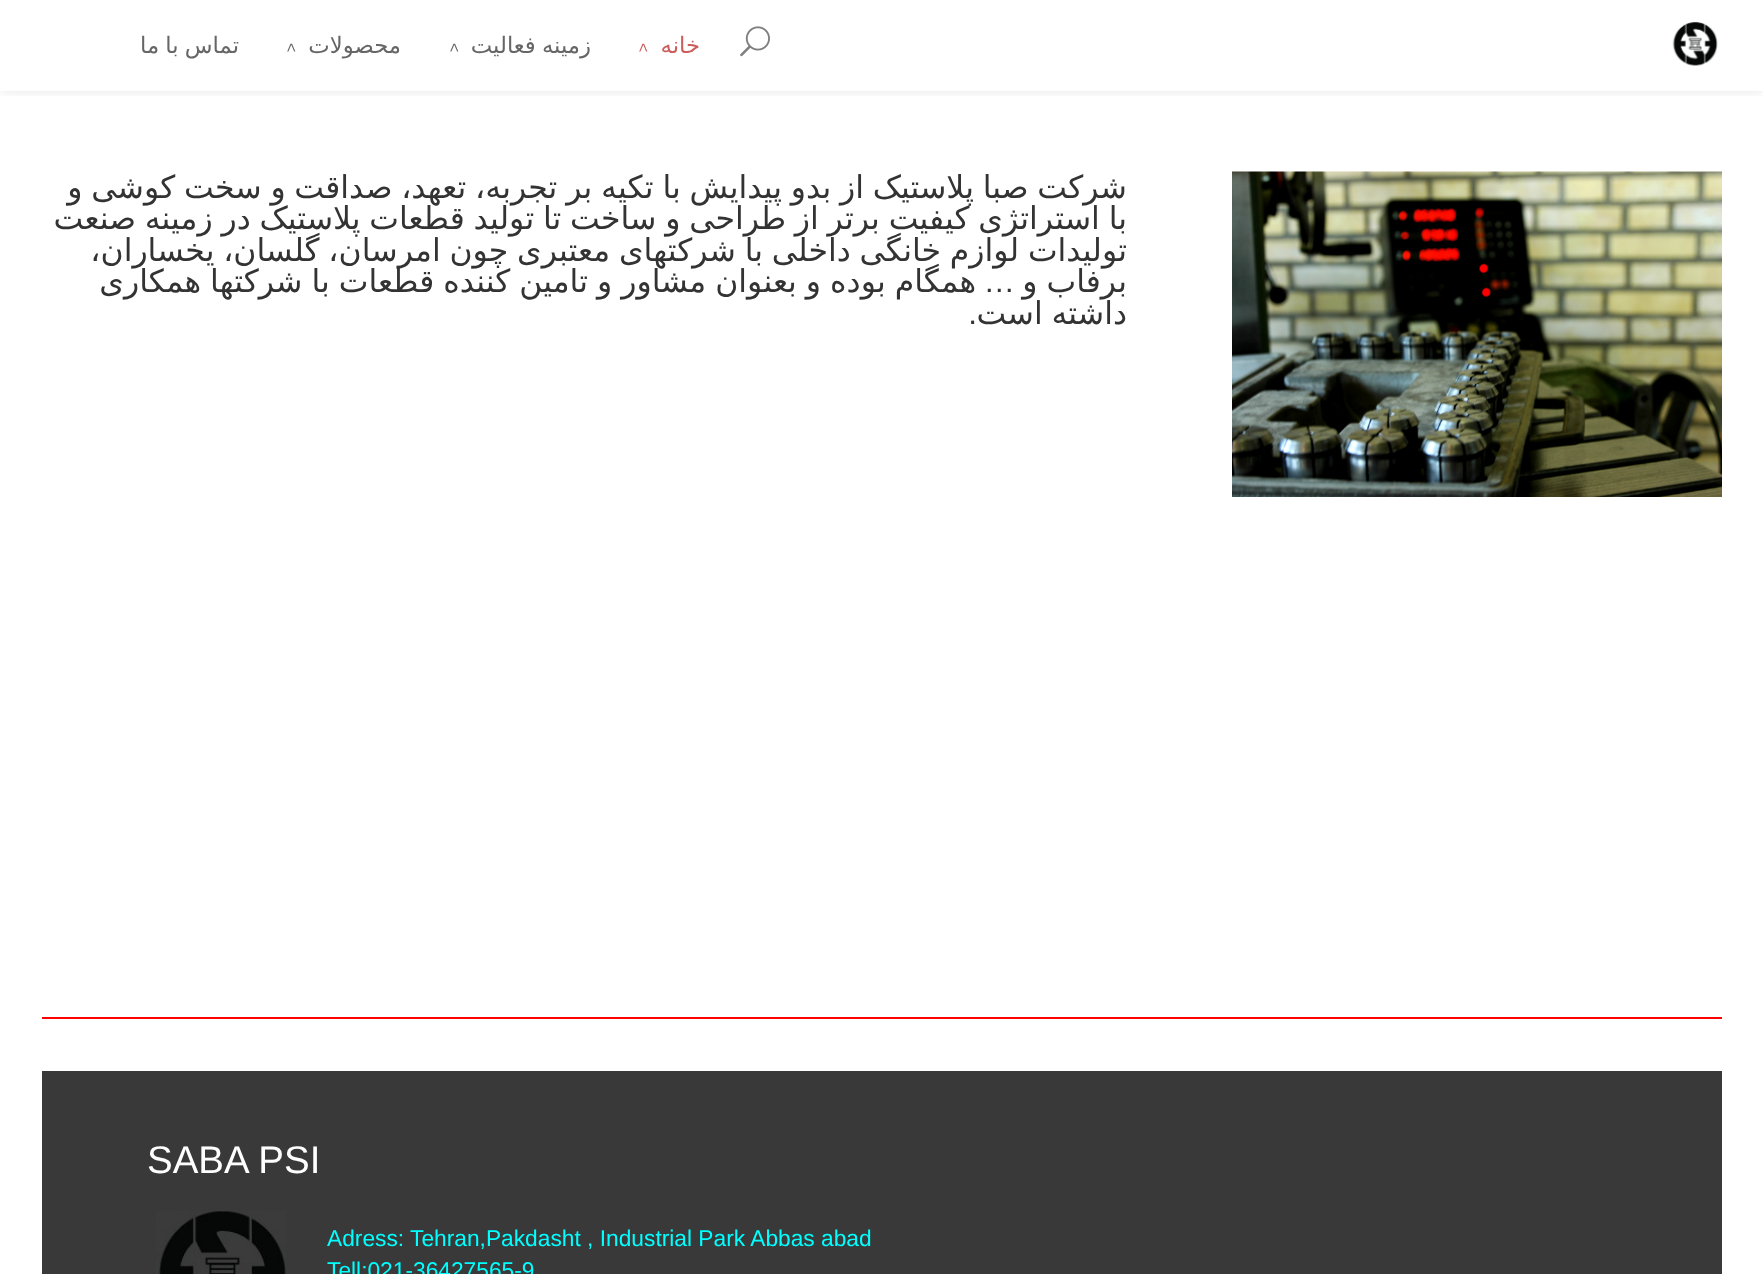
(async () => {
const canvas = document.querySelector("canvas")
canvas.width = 1763
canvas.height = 1274
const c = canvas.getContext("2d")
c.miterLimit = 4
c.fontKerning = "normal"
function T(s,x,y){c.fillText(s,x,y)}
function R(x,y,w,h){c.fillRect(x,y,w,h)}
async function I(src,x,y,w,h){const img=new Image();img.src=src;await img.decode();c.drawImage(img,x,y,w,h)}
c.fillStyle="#fff"
R(0,0,1763,1274)
c.save()
c.beginPath()
c.rect(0,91,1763,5)
c.clip()
c.fillStyle="#0000001a"
c.filter="blur(6px)"
c.beginPath()
c.rect(0,0,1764,91)
c.fill()
c.filter="none"
c.restore()
await I("1.png",1672,21,46,45)
await I("2.png",740,26,30,31)
c.direction="rtl"
c.font="22.75px DejaVu Sans"
c.fillStyle="#cd5c5c"
T("خانه",700,53)
c.direction="ltr"
c.font="16px Liberation Sans"
c.save()
c.translate(638,43)
c.rotate(90 * Math.PI / 180)
c.fillText("<",0,0)
c.restore()
c.wordSpacing="-1px"
c.direction="rtl"
c.font="22.75px DejaVu Sans"
c.fillStyle="#666"
T("زمینه فعالیت",591,53)
c.wordSpacing="0px"
c.direction="ltr"
c.font="16px Liberation Sans"
c.save()
c.translate(449,43)
c.rotate(90 * Math.PI / 180)
c.fillText("<",0,0)
c.restore()
c.direction="rtl"
c.font="22.75px DejaVu Sans"
T("محصولات",401,53)
c.direction="ltr"
c.font="16px Liberation Sans"
c.save()
c.translate(286,43)
c.rotate(90 * Math.PI / 180)
c.fillText("<",0,0)
c.restore()
c.wordSpacing="-1px"
c.direction="rtl"
c.font="22.75px DejaVu Sans"
T("تماس با ما",239,53)
await I("3.png",1232,171,490,326)
c.wordSpacing="-1.25px"
c.font="31.5px DejaVu Sans"
c.fillStyle="#333"
T("شرکت صبا پلاستیک از بدو پیدایش با تکیه بر تجربه، تعهد، صداقت و سخت کوشی و",1127,198)
T("با استراتژی کیفیت برتر از طراحی و ساخت تا تولید قطعات پلاستیک در زمینه صنعت",1127,229)
T("تولیدات لوازم خانگی داخلی با شرکتهای معتبری چون امرسان، گلسان، یخساران،",1127,261)
c.wordSpacing="-1px"
T("برفاب و",1127,292)
c.wordSpacing="0px"
c.font="31.5px Liberation Sans"
T("…",1015,292)
c.wordSpacing="-1px"
c.font="31.5px DejaVu Sans"
T("همگام بوده و بعنوان مشاور و تامین کننده قطعات با شرکتها همکاری",976,292)
c.wordSpacing="-1.25px"
T("داشته است",1127,324)
c.wordSpacing="0px"
c.font="31.5px Liberation Sans"
T(".",977,324)
c.fillStyle="#f00"
R(42,1017,1680,2)
c.fillStyle="#393939"
R(42,1071,1680,203)
c.direction="ltr"
c.font="38.5px Liberation Sans"
c.fillStyle="#fff"
T("SABA PSI",147,1173)
c.font="22.75px Liberation Sans"
c.fillStyle="#0ff"
T("Adress: Tehran,Pakdasht , Industrial Park Abbas abad",327,1246)
await I("4.png",156,1211,130,63)
T("Tell:021-36427565-9",327,1278)
})()
